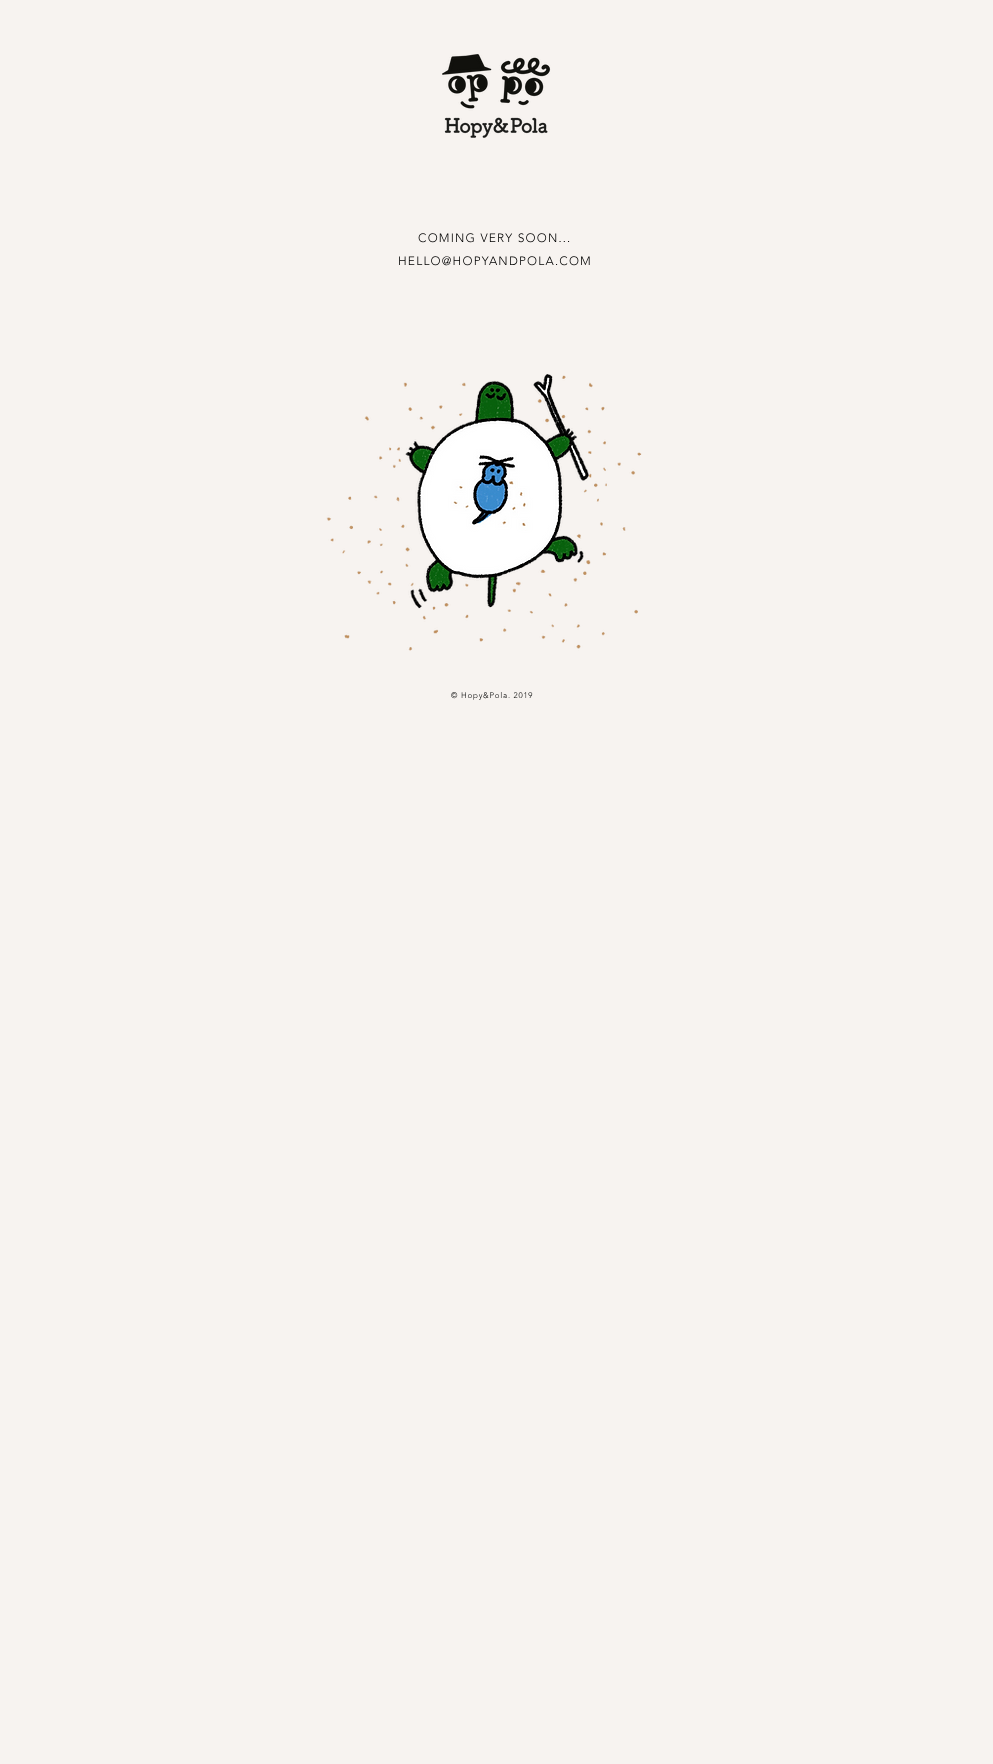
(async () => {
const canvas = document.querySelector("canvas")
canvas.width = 993
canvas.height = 1764
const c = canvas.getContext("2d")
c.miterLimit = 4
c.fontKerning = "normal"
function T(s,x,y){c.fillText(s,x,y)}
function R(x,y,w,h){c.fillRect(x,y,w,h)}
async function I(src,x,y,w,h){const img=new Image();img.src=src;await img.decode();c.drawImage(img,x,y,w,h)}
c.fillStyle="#f7f3f0"
R(0,0,993,1764)
await I("1.png",442,54,109,84)
c.letterSpacing="1.2px"
c.font="300 12px 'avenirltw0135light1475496'"
c.fillStyle="#000"
T("COMING VERY SOON...",418,242)
T("HELLO@HOPYANDPOLA.COM",398,265)
await I("2.png",326,374,316,277)
c.letterSpacing="0.75px"
c.font="300 8px 'avenirltw0135light1475496'"
T("© Hopy&Pola. 2019",451,698)
})()
